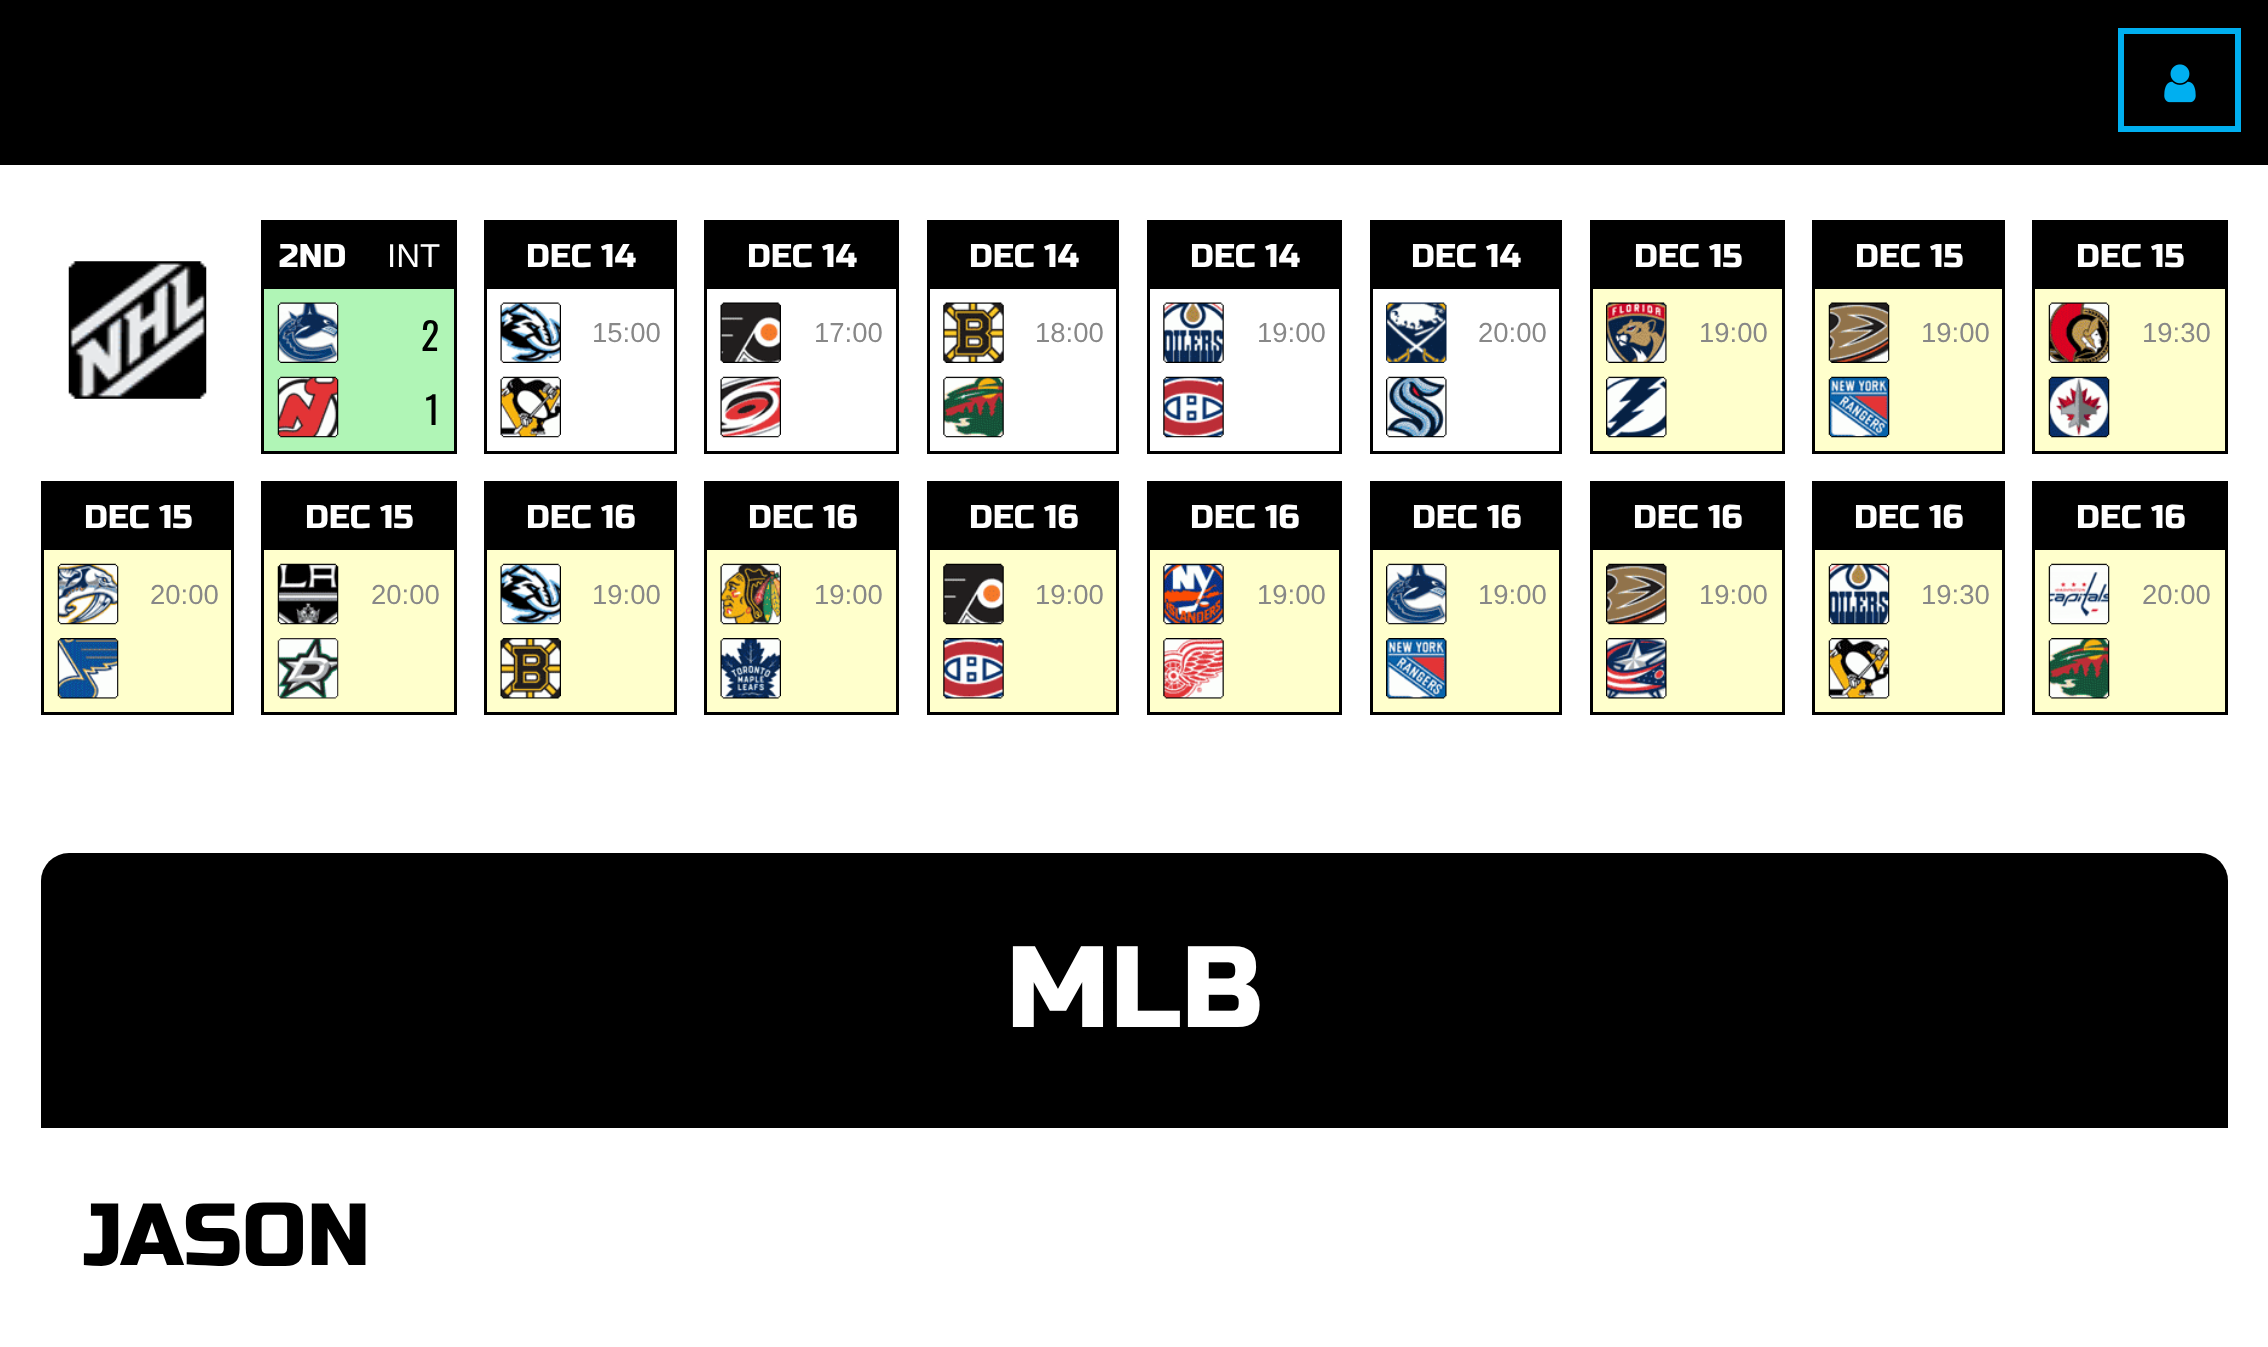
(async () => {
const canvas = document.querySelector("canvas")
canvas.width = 2268
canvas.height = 1347
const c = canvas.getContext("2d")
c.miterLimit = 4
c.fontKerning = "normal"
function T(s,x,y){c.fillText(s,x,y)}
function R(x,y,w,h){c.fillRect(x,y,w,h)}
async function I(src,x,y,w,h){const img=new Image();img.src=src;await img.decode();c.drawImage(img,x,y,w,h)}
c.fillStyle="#fff"
R(0,0,2268,1347)
c.fillStyle="#000"
R(0,0,2268,165)
c.strokeStyle="#00aff0"
c.lineWidth=6
c.strokeRect(2121,31,117,98)
await I("1.png",2164,64,32,39)
await I("2.png",68,261,139,138)
c.fillStyle="#b0f5b6"
R(264,289,190,162)
c.strokeStyle="#000"
c.lineWidth=3
c.strokeRect(262.5,221.5,193,231)
c.fillStyle="#000"
R(264,223,190,66)
c.font="33px Russo One"
c.fillStyle="#fff"
T("2ND",279,267)
c.font="33px Liberation Sans"
T("INT",387,267)
await I("3.png",277,302,62,61)
c.font="38px Oswald"
c.fillStyle="#000"
T("2",421,351)
await I("4.png",277,376,62,62)
T("1",425,425)
c.strokeRect(485.5,221.5,190,231)
R(487,223,187,66)
c.font="33px Russo One"
c.fillStyle="#fff"
T("DEC 14",526,267)
await I("5.png",500,302,61,61)
c.font="27.5px Liberation Sans"
c.fillStyle="#888"
T("15:00",592,342)
await I("6.png",500,376,61,62)
c.strokeRect(705.5,221.5,192,231)
c.fillStyle="#000"
R(707,223,189,66)
c.font="33px Russo One"
c.fillStyle="#fff"
T("DEC 14",747,267)
await I("7.png",720,302,61,61)
c.font="27.5px Liberation Sans"
c.fillStyle="#888"
T("17:00",814,342)
await I("8.png",720,376,61,62)
c.strokeRect(928.5,221.5,189,231)
c.fillStyle="#000"
R(930,223,186,66)
c.font="33px Russo One"
c.fillStyle="#fff"
T("DEC 14",969,267)
await I("9.png",943,302,61,61)
c.font="27.5px Liberation Sans"
c.fillStyle="#888"
T("18:00",1035,342)
await I("10.png",943,376,61,62)
c.strokeRect(1148.5,221.5,192,231)
c.fillStyle="#000"
R(1150,223,189,66)
c.font="33px Russo One"
c.fillStyle="#fff"
T("DEC 14",1190,267)
await I("11.png",1163,302,61,61)
c.font="27.5px Liberation Sans"
c.fillStyle="#888"
T("19:00",1257,342)
await I("12.png",1163,376,61,62)
c.strokeRect(1371.5,221.5,189,231)
c.fillStyle="#000"
R(1373,223,186,66)
c.font="33px Russo One"
c.fillStyle="#fff"
T("DEC 14",1411,267)
await I("13.png",1386,302,61,61)
c.font="27.5px Liberation Sans"
c.fillStyle="#888"
T("20:00",1478,342)
await I("14.png",1386,376,61,62)
c.fillStyle="#ffc"
R(1593,289,189,162)
c.strokeRect(1591.5,221.5,192,231)
c.fillStyle="#000"
R(1593,223,189,66)
c.font="33px Russo One"
c.fillStyle="#fff"
T("DEC 15",1634,267)
await I("15.png",1606,302,61,61)
c.font="27.5px Liberation Sans"
c.fillStyle="#888"
T("19:00",1699,342)
await I("16.png",1606,376,61,62)
c.fillStyle="#ffc"
R(1815,289,187,162)
c.strokeRect(1813.5,221.5,190,231)
c.fillStyle="#000"
R(1815,223,187,66)
c.font="33px Russo One"
c.fillStyle="#fff"
T("DEC 15",1855,267)
await I("17.png",1828,302,62,61)
c.font="27.5px Liberation Sans"
c.fillStyle="#888"
T("19:00",1921,342)
await I("18.png",1828,376,62,62)
c.fillStyle="#ffc"
R(2035,289,190,162)
c.strokeRect(2033.5,221.5,193,231)
c.fillStyle="#000"
R(2035,223,190,66)
c.font="33px Russo One"
c.fillStyle="#fff"
T("DEC 15",2076,267)
await I("19.png",2048,302,62,61)
c.font="27.5px Liberation Sans"
c.fillStyle="#888"
T("19:30",2142,342)
await I("20.png",2048,376,62,62)
c.fillStyle="#ffc"
R(44,550,187,162)
c.strokeRect(42.5,482.5,190,231)
c.fillStyle="#000"
R(44,484,187,66)
c.font="33px Russo One"
c.fillStyle="#fff"
T("DEC 15",84,528)
await I("21.png",57,563,62,62)
c.font="27.5px Liberation Sans"
c.fillStyle="#888"
T("20:00",150,604)
await I("22.png",57,638,62,61)
c.fillStyle="#ffc"
R(264,550,190,162)
c.strokeRect(262.5,482.5,193,231)
c.fillStyle="#000"
R(264,484,190,66)
c.font="33px Russo One"
c.fillStyle="#fff"
T("DEC 15",305,528)
await I("23.png",277,563,62,62)
c.font="27.5px Liberation Sans"
c.fillStyle="#888"
T("20:00",371,604)
await I("24.png",277,638,62,61)
c.fillStyle="#ffc"
R(487,550,187,162)
c.strokeRect(485.5,482.5,190,231)
c.fillStyle="#000"
R(487,484,187,66)
c.font="33px Russo One"
c.fillStyle="#fff"
T("DEC 16",526,528)
await I("25.png",500,563,61,62)
c.font="27.5px Liberation Sans"
c.fillStyle="#888"
T("19:00",592,604)
await I("26.png",500,638,61,61)
c.fillStyle="#ffc"
R(707,550,189,162)
c.strokeRect(705.5,482.5,192,231)
c.fillStyle="#000"
R(707,484,189,66)
c.font="33px Russo One"
c.fillStyle="#fff"
T("DEC 16",748,528)
await I("27.png",720,563,61,62)
c.font="27.5px Liberation Sans"
c.fillStyle="#888"
T("19:00",814,604)
await I("28.png",720,638,61,61)
c.fillStyle="#ffc"
R(930,550,186,162)
c.strokeRect(928.5,482.5,189,231)
c.fillStyle="#000"
R(930,484,186,66)
c.font="33px Russo One"
c.fillStyle="#fff"
T("DEC 16",969,528)
await I("29.png",943,563,61,62)
c.font="27.5px Liberation Sans"
c.fillStyle="#888"
T("19:00",1035,604)
await I("30.png",943,638,61,61)
c.fillStyle="#ffc"
R(1150,550,189,162)
c.strokeRect(1148.5,482.5,192,231)
c.fillStyle="#000"
R(1150,484,189,66)
c.font="33px Russo One"
c.fillStyle="#fff"
T("DEC 16",1190,528)
await I("31.png",1163,563,61,62)
c.font="27.5px Liberation Sans"
c.fillStyle="#888"
T("19:00",1257,604)
await I("32.png",1163,638,61,61)
c.fillStyle="#ffc"
R(1373,550,186,162)
c.strokeRect(1371.5,482.5,189,231)
c.fillStyle="#000"
R(1373,484,186,66)
c.font="33px Russo One"
c.fillStyle="#fff"
T("DEC 16",1412,528)
await I("33.png",1386,563,61,62)
c.font="27.5px Liberation Sans"
c.fillStyle="#888"
T("19:00",1478,604)
await I("34.png",1386,638,61,61)
c.fillStyle="#ffc"
R(1593,550,189,162)
c.strokeRect(1591.5,482.5,192,231)
c.fillStyle="#000"
R(1593,484,189,66)
c.font="33px Russo One"
c.fillStyle="#fff"
T("DEC 16",1633,528)
await I("35.png",1606,563,61,62)
c.font="27.5px Liberation Sans"
c.fillStyle="#888"
T("19:00",1699,604)
await I("36.png",1606,638,61,61)
c.fillStyle="#ffc"
R(1815,550,187,162)
c.strokeRect(1813.5,482.5,190,231)
c.fillStyle="#000"
R(1815,484,187,66)
c.font="33px Russo One"
c.fillStyle="#fff"
T("DEC 16",1854,528)
await I("37.png",1828,563,62,62)
c.font="27.5px Liberation Sans"
c.fillStyle="#888"
T("19:30",1921,604)
await I("38.png",1828,638,62,61)
c.fillStyle="#ffc"
R(2035,550,190,162)
c.strokeRect(2033.5,482.5,193,231)
c.fillStyle="#000"
R(2035,484,190,66)
c.font="33px Russo One"
c.fillStyle="#fff"
T("DEC 16",2076,528)
await I("39.png",2048,563,62,62)
c.font="27.5px Liberation Sans"
c.fillStyle="#888"
T("20:00",2142,604)
await I("40.png",2048,638,62,61)
c.fillStyle="#000"
c.beginPath()
c.roundRect(41,853,2187,275,[28,28,0,0])
c.fill()
c.font="115.5px Russo One"
c.fillStyle="#fff"
T("MLB",1006,1027)
c.font="88px Russo One"
c.fillStyle="#000"
T("JASON",83,1265)
})()
